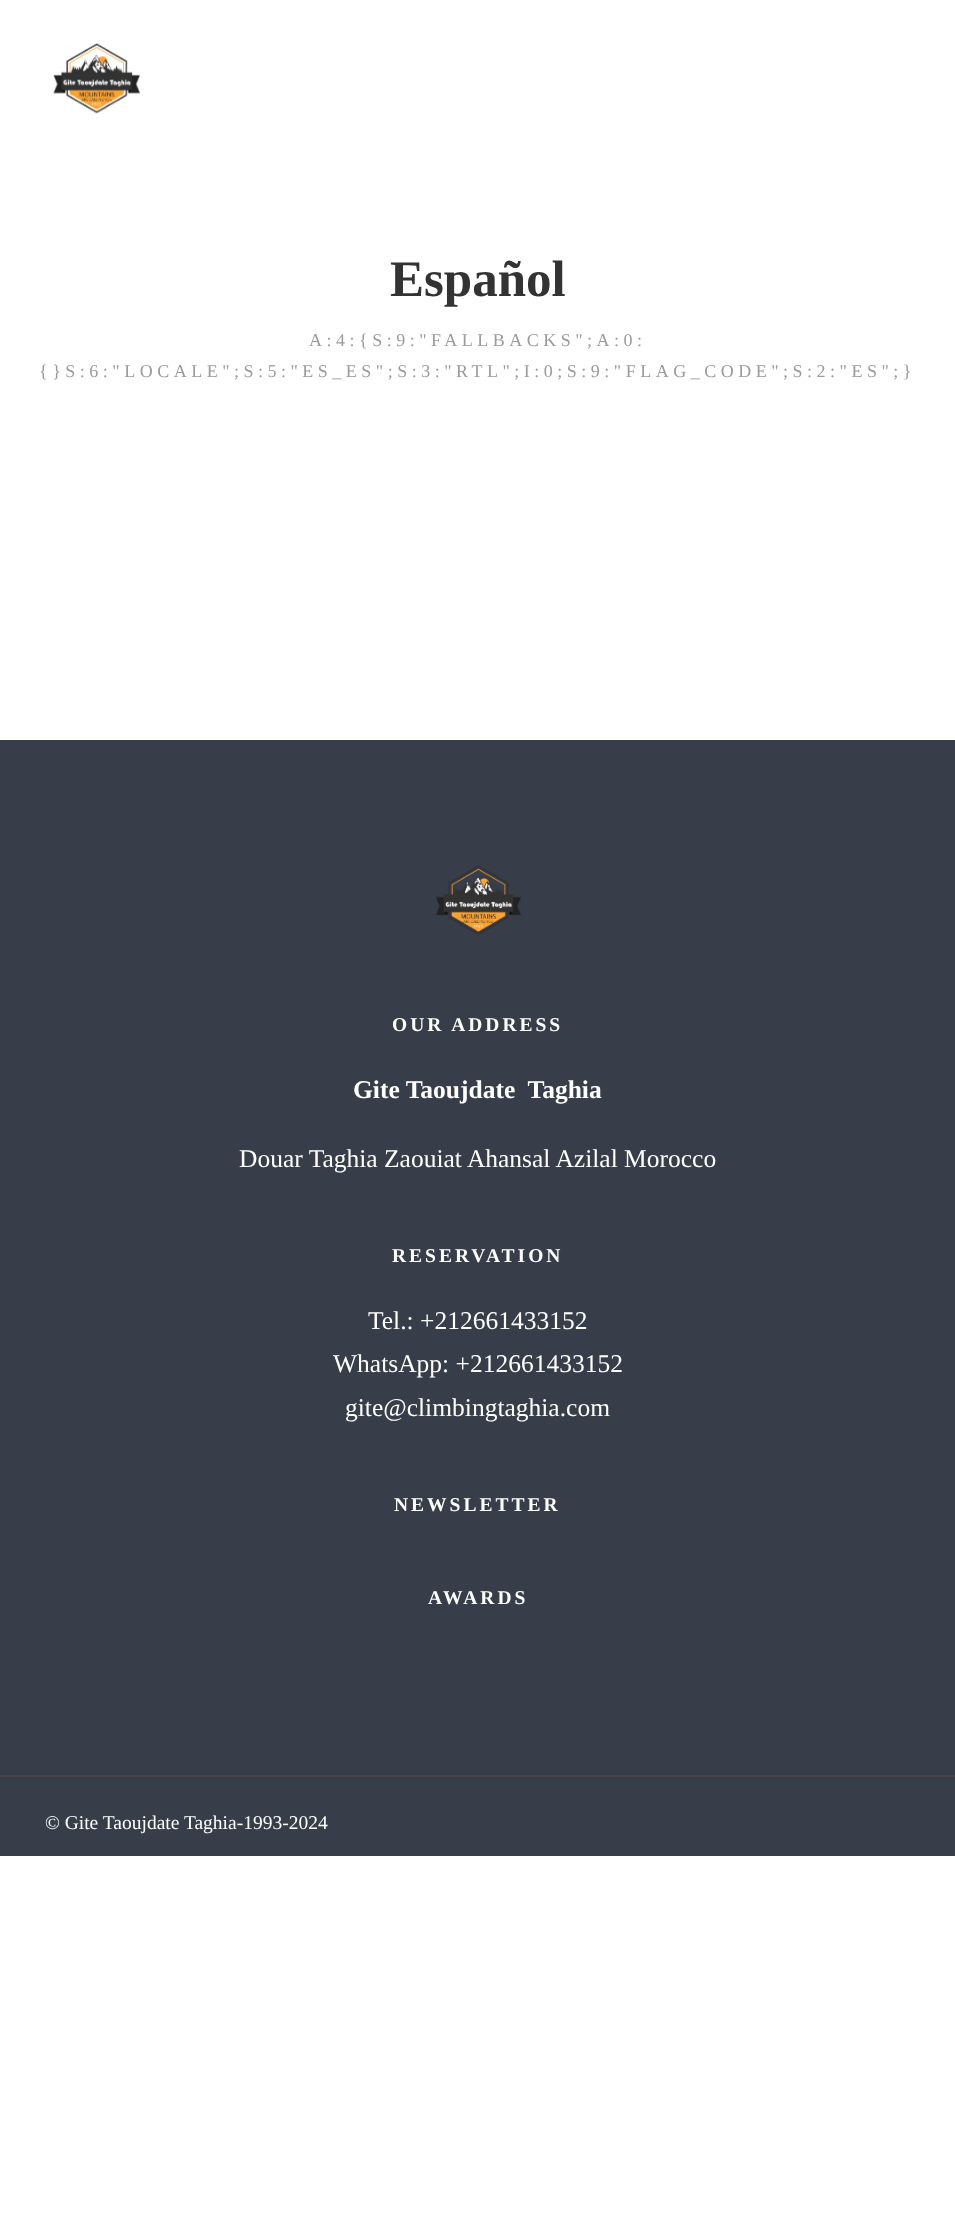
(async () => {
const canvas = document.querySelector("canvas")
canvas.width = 955
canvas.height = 2237
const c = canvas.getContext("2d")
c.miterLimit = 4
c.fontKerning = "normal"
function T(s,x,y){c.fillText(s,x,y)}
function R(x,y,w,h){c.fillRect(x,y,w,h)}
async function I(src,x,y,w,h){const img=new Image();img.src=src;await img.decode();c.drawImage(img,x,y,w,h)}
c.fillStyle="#fff"
R(0,0,955,2237)
await I("1.png",53,43,87,71)
c.font="bold 51px Liberation Serif"
c.fillStyle="#333"
T("Español",390,296)
c.letterSpacing="4.5px"
c.font="18px Liberation Serif"
c.fillStyle="#9b9b9b"
T("A:4:{S:9:\"FALLBACKS\";A:0:",309,346)
T("{}S:6:\"LOCALE\";S:5:\"ES_ES\";S:3:\"RTL\";I:0;S:9:\"FLAG_CODE\";S:2:\"ES\";}",39,377)
c.fillStyle="#373d49"
R(0,740,955,1035)
await I("2.png",436,865,85,70)
c.letterSpacing="3px"
c.font="bold 19.5px Liberation Serif"
c.fillStyle="#fff"
T("OUR ADDRESS",392,1031)
c.letterSpacing="0px"
c.font="bold 25.5px Liberation Serif"
T("Gite Taoujdate  Taghia",353,1098)
c.font="25.5px Liberation Serif"
T("Douar Taghia Zaouiat Ahansal Azilal Morocco",239,1167)
c.letterSpacing="3px"
c.font="bold 19.5px Liberation Serif"
T("RESERVATION",392,1262)
c.letterSpacing="0px"
c.font="25.5px Liberation Serif"
T("Tel.: +212661433152",368,1329)
T("WhatsApp: +212661433152",333,1372)
T("gite@climbingtaghia.com",345,1416)
c.letterSpacing="3px"
c.font="bold 19.5px Liberation Serif"
T("NEWSLETTER",394,1511)
T("AWARDS",428,1604)
c.fillStyle="#373d49"
R(0,1777,955,79)
c.fillStyle="#444"
R(0,1775,955,2)
c.letterSpacing="0px"
c.font="19.5px Liberation Serif"
c.fillStyle="#fff"
T("© Gite Taoujdate Taghia-1993-2024",45,1829)
})()
